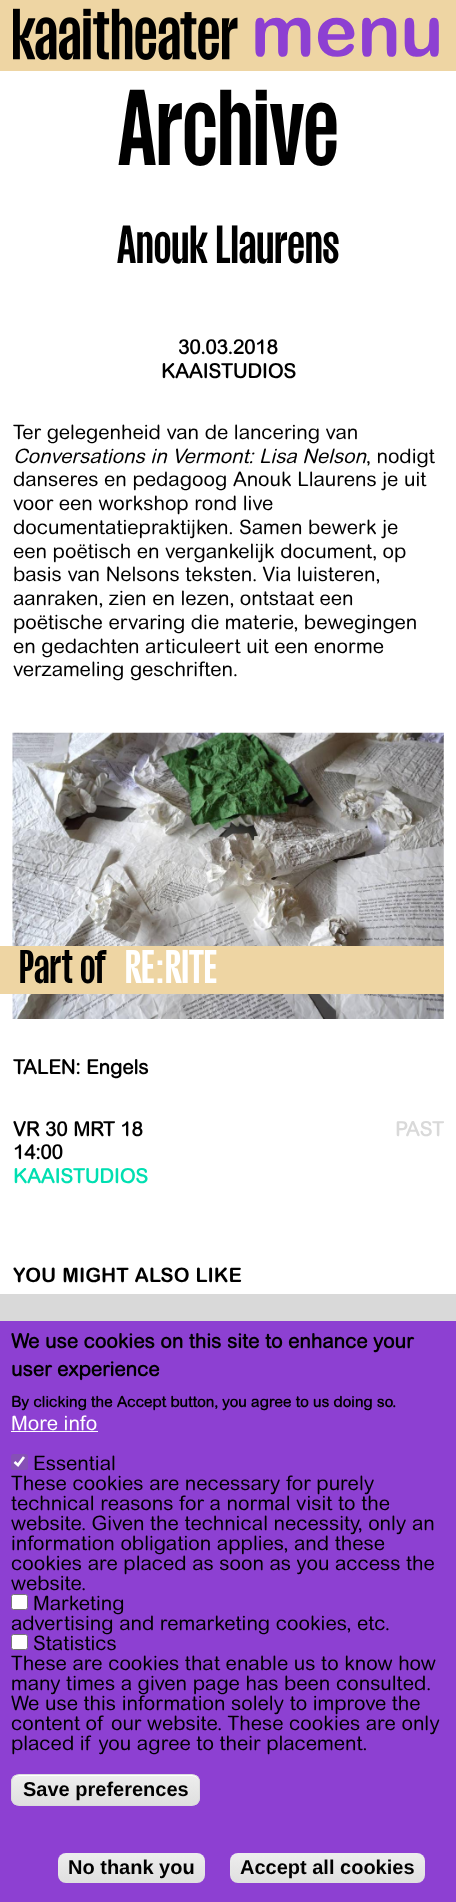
(async () => {
const canvas = document.querySelector("canvas")
canvas.width = 456
canvas.height = 1902
const c = canvas.getContext("2d")
c.miterLimit = 4
c.fontKerning = "normal"
function T(s,x,y){c.fillText(s,x,y)}
function R(x,y,w,h){c.fillRect(x,y,w,h)}
function Q(x,y,w,h,r){c.beginPath();c.roundRect(x,y,w,h,r);c.fill()}
async function I(src,x,y,w,h){const img=new Image();img.src=src;await img.decode();c.drawImage(img,x,y,w,h)}
let gradient, path
c.fillStyle="#fff"
R(0,0,456,1902)
c.fillStyle="#eed5a3"
R(0,0,456,71)
await I("1.png",13,8,225,52)
c.font="bold 72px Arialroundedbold"
c.fillStyle="#8d40d2"
T("menu",251,56)
c.font="100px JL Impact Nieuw"
c.fillStyle="#000"
T("Archive",118,165)
c.font="50px JL Impact Nieuw"
T("Anouk Llaurens",117,263)
c.font="bold 20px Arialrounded"
T("30.03.2018",178,354)
T("KAAISTUDIOS",161,378)
c.font="20px Arialrounded"
T("Ter gelegenheid van de lancering van",13,439)
c.font="italic 20px Arialrounded"
T("Conversations in Vermont: Lisa Nelson",13,463)
c.font="20px Arialrounded"
T(", nodigt",366,463)
T("danseres en pedagoog Anouk Llaurens je uit",13,486)
T("voor een workshop rond live",13,510)
T("documentatiepraktijken. Samen bewerk je",13,534)
T("een poëtisch en vergankelijk document, op",13,558)
T("basis van Nelsons teksten. Via luisteren,",13,581)
T("aanraken, zien en lezen, ontstaat een",13,605)
T("poëtische ervaring die materie, bewegingen",13,629)
T("en gedachten articuleert uit een enorme",13,653)
T("verzameling geschriften.",13,676)
await I("2.png",12,732,432,287)
c.fillStyle="#eed5a3"
R(0,946,444,48)
c.font="44px JL Impact Nieuw"
c.fillStyle="#000"
T("Part of",19,983)
c.fillStyle="#fff"
T("RE:RITE",125,983)
c.font="bold 20px Arialrounded"
c.fillStyle="#000"
T("TALEN: Engels",13,1074)
T("VR 30 MRT 18",13,1136)
T("14:00",13,1159)
c.fillStyle="#00dfb1"
T("KAAISTUDIOS",13,1183)
c.fillStyle="#d9d9d9"
T("PAST",395,1136)
c.font="bold 20px Arialroundedbold"
c.fillStyle="#000"
T("YOU MIGHT ALSO LIKE",13,1282)
c.fillStyle="#d9d9d9"
R(0,1294,456,27)
c.fillStyle="#8d40d2"
R(0,1321,456,581)
c.font="bold 20px Arialrounded"
c.fillStyle="#000"
T("We use cookies on this site to enhance your",11,1348)
T("user experience",11,1376)
c.font="bold 15px Arialrounded"
T("By clicking the Accept button, you agree to us doing so.",11,1407)
c.font="20px Arialrounded"
c.fillStyle="#fff"
T("More info",11,1430)
R(11,1431,87,1)
c.fillStyle="#8650b6"
Q(11,1454,17,16,2.5)
path = new Path2D("M14.5 1462l3.5 3l6-8")
c.strokeStyle="#fff"
c.lineWidth=2.6
c.stroke(path)
c.fillStyle="#000"
T("Essential",33,1470)
T("These cookies are necessary for purely",11,1490)
T("technical reasons for a normal visit to the",11,1510)
T("website. Given the technical necessity, only an",11,1530)
T("information obligation applies, and these",11,1550)
T("cookies are placed as soon as you access the",11,1570)
T("website.",11,1590)
c.fillStyle="#fff"
c.beginPath()
c.roundRect(11.5,1594.5,16,15,2)
c.fill()
c.strokeStyle="#767676"
c.lineWidth=1
c.stroke()
c.fillStyle="#000"
T("Marketing",33,1610)
T("advertising and remarketing cookies, etc.",11,1630)
c.fillStyle="#fff"
c.beginPath()
c.roundRect(11.5,1634.5,16,15,2)
c.fill()
c.stroke()
c.fillStyle="#000"
T("Statistics",33,1650)
T("These are cookies that enable us to know how",11,1670)
T("many times a given page has been consulted.",11,1690)
T("We use this information solely to improve the",11,1710)
T("content of our website. These cookies are only",11,1730)
T("placed if you agree to their placement.",11,1750)
c.save()
c.beginPath()
c.roundRect(11,1774,189,32,8)
c.clip()
gradient = c.createLinearGradient(106,1775,106,1805)
gradient.addColorStop(.05,"#ededed")
gradient.addColorStop(1,"#dfdfdf")
c.fillStyle = gradient
R(11,1775,189,30)
c.restore()
c.fillStyle="#fff"
path = new Path2D("M19 1776h173c4 0 7 3 7 6v-1c0-3-3-6-6-6h-174c-2 0-4 1-5 3c1-1 3-2 5-2z")
c.fill(path)
c.beginPath()
c.roundRect(11.5,1774.5,188,31,7.5)
c.strokeStyle="#dcdcdc"
c.stroke()
c.font="bold 20px Liberation Sans"
c.fillStyle="#000"
T("Save preferences",23,1796)
gradient = c.createLinearGradient(131,1853,131,1883)
gradient.addColorStop(.05,"#ededed")
gradient.addColorStop(1,"#dfdfdf")
c.fillStyle = gradient
Q(58,1853,147,30,8)
c.fillStyle="#000"
T("No thank you",68,1874)
gradient = c.createLinearGradient(328,1853,328,1883)
gradient.addColorStop(.05,"#ededed")
gradient.addColorStop(1,"#dfdfdf")
c.fillStyle = gradient
Q(230,1853,195,30,8)
c.fillStyle="#000"
T("Accept all cookies",240,1874)
})()
